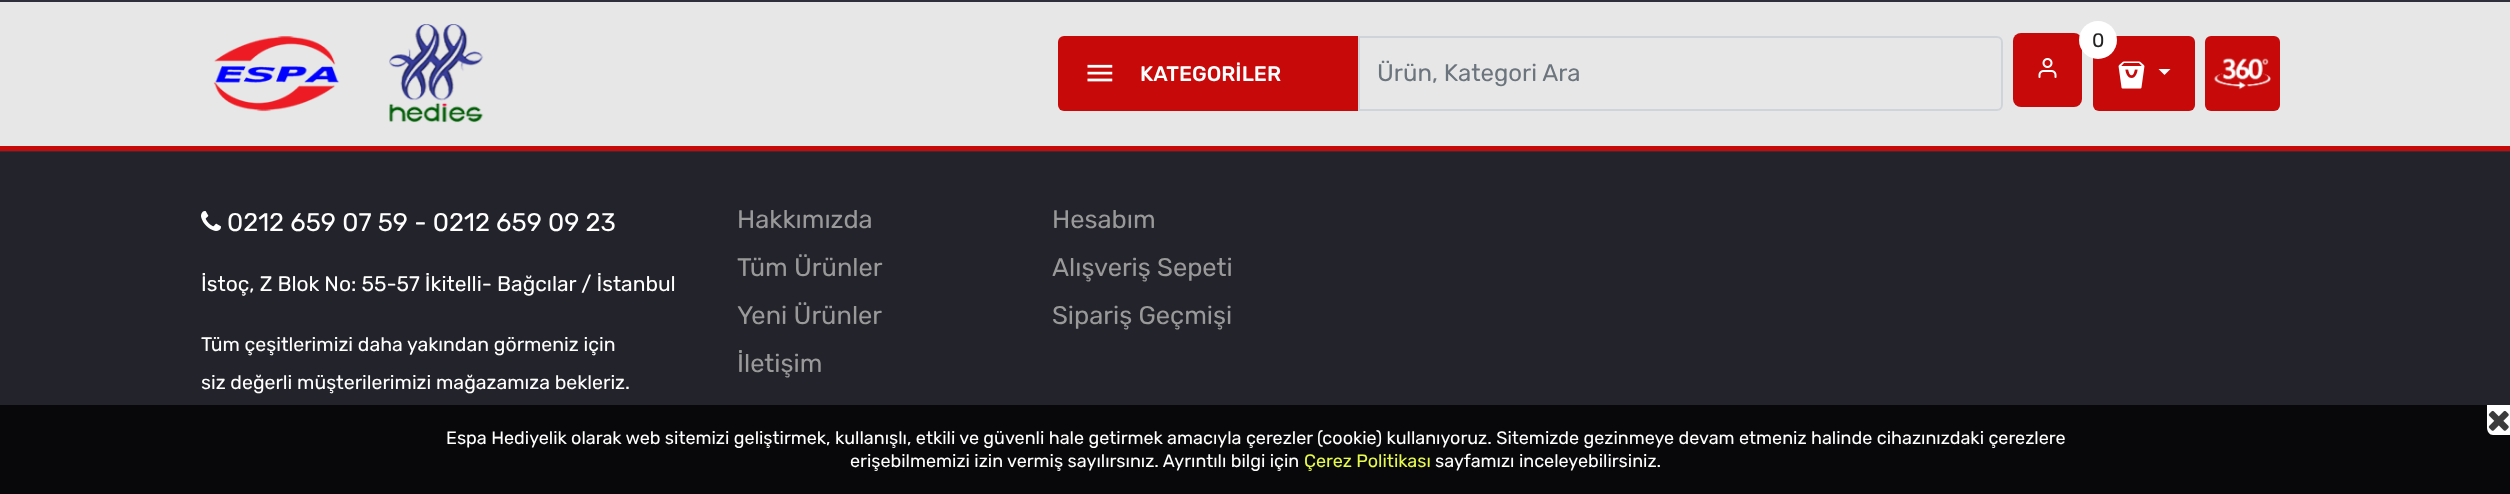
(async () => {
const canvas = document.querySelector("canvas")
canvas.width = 2510
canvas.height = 494
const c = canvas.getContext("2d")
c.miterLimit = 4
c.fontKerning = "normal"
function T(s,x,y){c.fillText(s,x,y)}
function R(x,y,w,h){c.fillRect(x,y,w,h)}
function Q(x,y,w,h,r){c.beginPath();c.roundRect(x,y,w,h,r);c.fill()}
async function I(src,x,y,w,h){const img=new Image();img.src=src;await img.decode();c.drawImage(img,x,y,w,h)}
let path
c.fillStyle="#23232b"
R(0,0,2510,494)
c.fillStyle="#2f2f3b"
R(0,151,2510,1)
c.fillStyle="#e7e7e7"
R(0,2,2510,144)
c.fillStyle="#2f2f3b"
R(0,0,2510,2)
c.fillStyle="#c70909"
R(0,146,2510,5)
await I("1.png",213,24,271,99)
Q(2013,33,69,74,8)
await I("2.png",2038,58,19,20)
Q(2093,36,102,75,6)
c.fillStyle="#fff"
c.beginPath()
c.arc(2098,40,19,0,7)
c.fill()
c.font="19.5px Rubik"
c.fillStyle="#222"
T("0",2092,47)
await I("3.png",2118,61,27,28)
c.fillStyle="#fff"
path = new Path2D("M2158.5 69h12l-6 6z")
c.fill(path)
c.fillStyle="#c70909"
Q(2205,36,75,75,6)
await I("4.png",2213,58,58,32)
c.beginPath()
c.roundRect(1058,36,300,75,[6,0,0,6])
c.fill()
await I("5.png",1087,64,26,18)
c.font="500 21px Rubik"
c.fillStyle="#fff"
T("KATEGORİLER",1140,81)
Q(1358,36,645,75,8)
c.fillStyle="#e7e7e7"
c.beginPath()
c.roundRect(1359,37,643,73,[0,5,5,0])
c.fill()
c.strokeStyle="#ced4da"
c.lineWidth=2
c.stroke()
c.font="24px Rubik"
c.fillStyle="#6c757d"
T("Ürün, Kategori Ara",1377,81)
await I("6.png",201,211,20,20)
c.font="25.5px Rubik"
c.fillStyle="#fff"
T("0212 659 07 59 - 0212 659 09 23",227,231)
c.font="21px Rubik"
T("İstoç, Z Blok No: 55-57 İkitelli- Bağcılar / İstanbul",201,291)
c.font="19.5px Rubik"
T("Tüm çeşitlerimizi daha yakından görmeniz için",201,351)
T("siz değerli müşterilerimizi mağazamıza bekleriz.",201,389)
c.font="25.5px Rubik"
c.fillStyle="#999"
T("Hakkımızda",737,228)
T("Tüm Ürünler",737,276)
T("Yeni Ürünler",737,324)
T("İletişim",737,372)
T("Hesabım",1052,228)
T("Alışveriş Sepeti",1052,276)
T("Sipariş Geçmişi",1052,324)
c.fillStyle="#08080a"
R(0,405,2510,89)
c.fillStyle="#fff"
path = new Path2D("M2487 405h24v30h-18c-3.5 0-6-3.5-6-7.5z")
c.fill(path)
await I("7.png",2488,410,21,21)
c.font="18px Rubik"
T("Espa Hediyelik olarak web sitemizi geliştirmek, kullanışlı, etkili ve güvenli hale getirmek amacıyla çerezler (cookie) kullanıyoruz. Sitemizde gezinmeye devam etmeniz halinde cihazınızdaki çerezlere",446,444)
T("erişebilmemizi izin vermiş sayılırsınız. Ayrıntılı bilgi için",850,467)
c.fillStyle="#e8fb4b"
T("Çerez Politikası",1304,467)
c.fillStyle="#fff"
T("‌sayfamızı inceleyebilirsiniz.",1435,467)
})()
